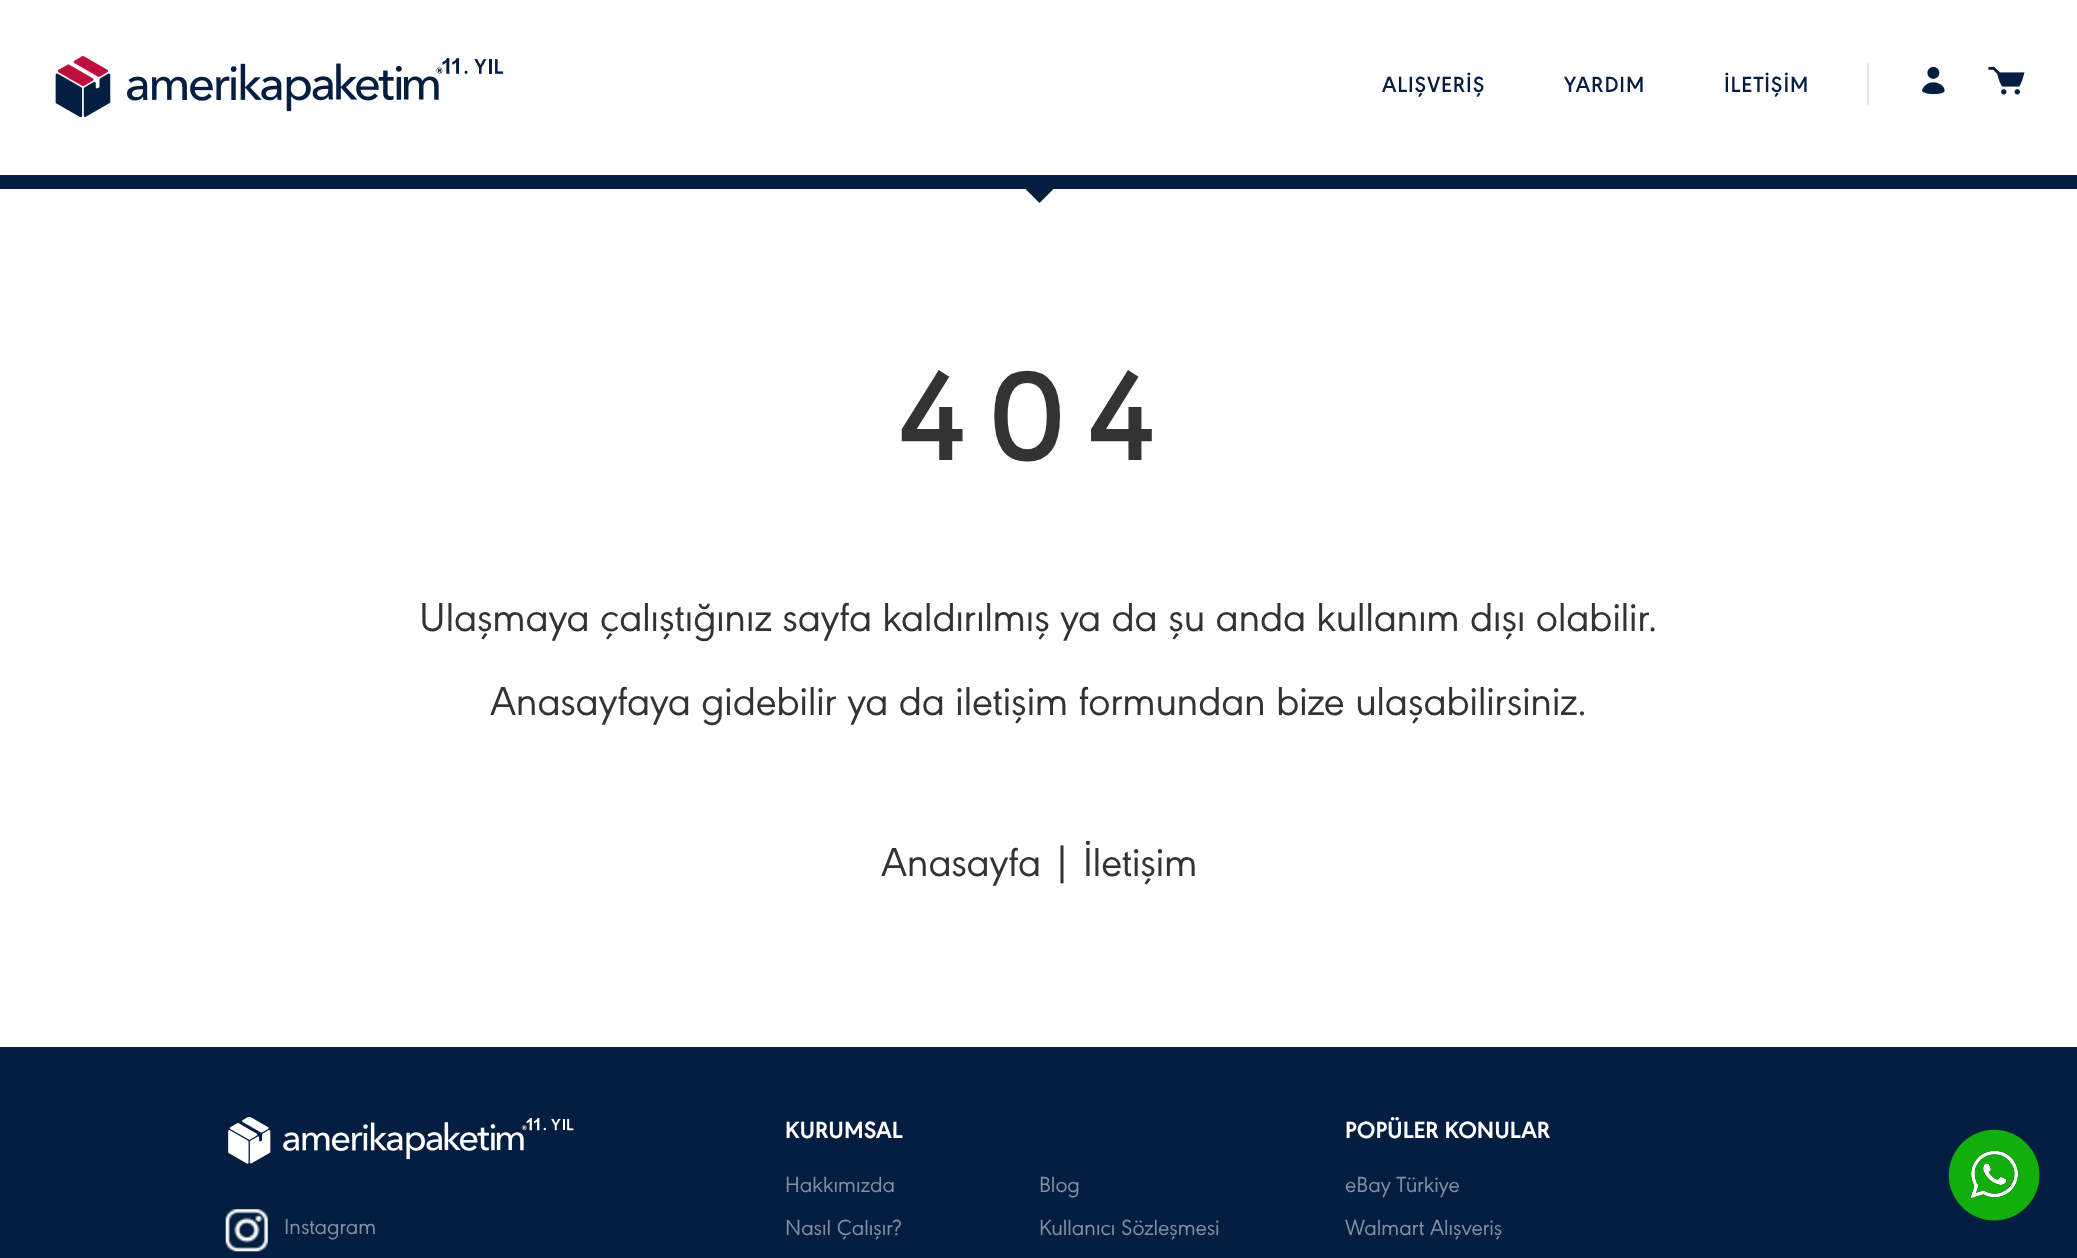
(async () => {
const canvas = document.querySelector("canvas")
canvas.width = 2077
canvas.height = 1258
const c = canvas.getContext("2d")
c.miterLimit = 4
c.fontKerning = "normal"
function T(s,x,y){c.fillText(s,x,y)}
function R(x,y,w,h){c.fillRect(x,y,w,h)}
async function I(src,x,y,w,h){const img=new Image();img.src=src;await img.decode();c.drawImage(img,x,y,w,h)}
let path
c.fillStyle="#fff"
R(0,0,2077,1258)
await I("1.png",55,56,449,61)
c.letterSpacing="0.9px"
c.font="600 22.75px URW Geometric"
c.fillStyle="#041e42"
T("ALIŞVERİŞ",1382,92)
T("YARDIM",1564,92)
T("İLETİŞİM",1724,92)
c.fillStyle="#e6e6e6"
R(1867,63,2,42)
await I("2.png",1922,66,23,29)
await I("3.png",1988,66,37,29)
c.fillStyle="#041e42"
R(0,175,2077,14)
path = new Path2D("M1025.5 189h28l-14 14z")
c.fill(path)
c.letterSpacing="26px"
c.font="bold 126px URW Geometric"
c.fillStyle="#333"
T("404",898,460)
c.letterSpacing="0px"
c.font="42px URW Geometric"
T("Ulaşmaya çalıştığınız sayfa kaldırılmış ya da şu anda kullanım dışı olabilir.",419,631)
T("Anasayfaya gidebilir ya da iletişim formundan bize ulaşabilirsiniz.",490,715)
T("Anasayfa | İletişim",881,876)
c.fillStyle="#041e42"
R(0,1047,2077,211)
await I("4.png",228,1117,346,47)
await I("5.png",225,1209,43,43)
c.font="22.75px URW Geometric"
c.fillStyle="#828fa1"
T("Instagram",284,1234)
c.font="bold 24.5px 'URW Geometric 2'"
c.fillStyle="#fff"
T("KURUMSAL",785,1138)
c.font="22.75px URW Geometric"
c.fillStyle="#828fa1"
T("Hakkımızda",785,1192)
T("Blog",1039,1192)
T("Nasıl Çalışır?",785,1235)
T("Kullanıcı Sözleşmesi",1039,1235)
c.font="bold 24.5px 'URW Geometric 2'"
c.fillStyle="#fff"
T("POPÜLER KONULAR",1345,1138)
c.font="22.75px URW Geometric"
c.fillStyle="#828fa1"
T("eBay Türkiye",1345,1192)
T("Walmart Alışveriş",1345,1235)
await I("6.png",1948,1129,92,92)
})()
